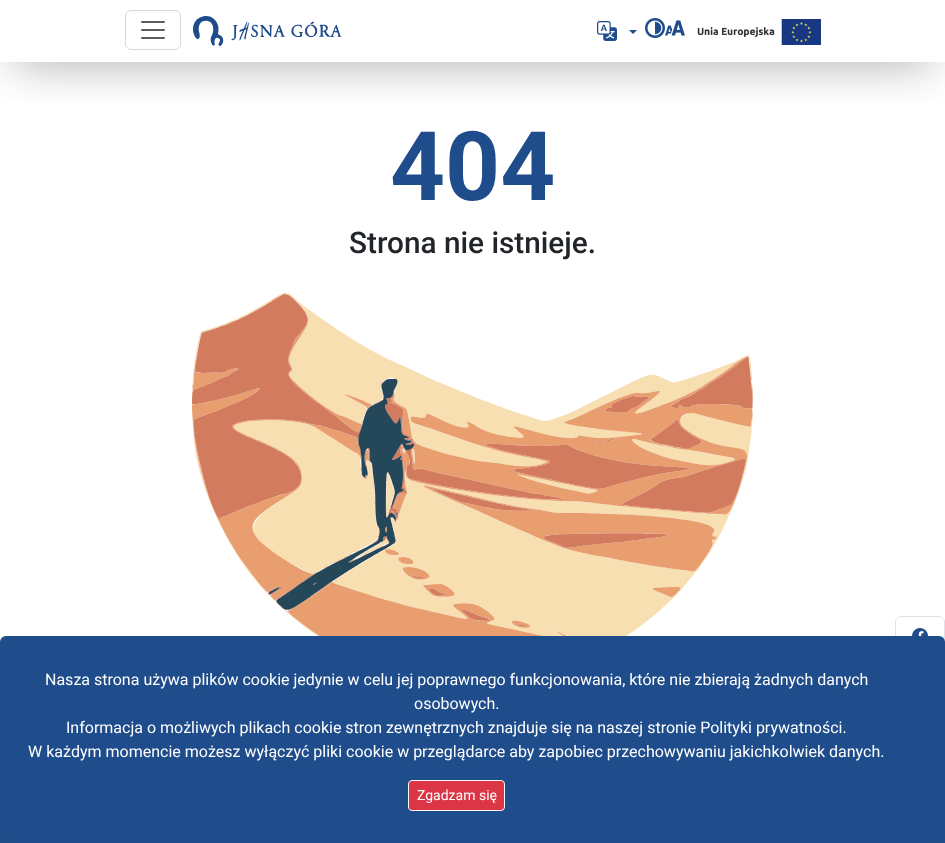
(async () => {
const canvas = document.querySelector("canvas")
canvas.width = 945
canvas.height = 843
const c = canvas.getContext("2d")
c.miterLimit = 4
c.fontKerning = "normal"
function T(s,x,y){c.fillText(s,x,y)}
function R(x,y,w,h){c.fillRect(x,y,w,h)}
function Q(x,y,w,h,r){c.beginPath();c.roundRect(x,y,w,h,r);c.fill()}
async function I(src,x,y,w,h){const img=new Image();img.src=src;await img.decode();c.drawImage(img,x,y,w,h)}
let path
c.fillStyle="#fff"
R(0,0,945,843)
c.save()
c.beginPath()
c.rect(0,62,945,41)
c.clip()
c.fillStyle="#49494980"
c.filter="blur(23px)"
c.beginPath()
c.rect(14,29,917,34)
c.fill()
c.filter="none"
c.restore()
c.beginPath()
c.roundRect(125.5,10.5,55,39,5.5)
c.strokeStyle="#d9d9d9"
c.stroke()
await I("1.png",141,21,24,18)
await I("2.png",193,16,149,30)
await I("3.png",597,21,20,20)
c.fillStyle="#1f4c8a"
path = new Path2D("M629 30h8l-4 4z")
c.fill(path)
await I("4.png",645,18,20,20)
await I("5.png",665,20,20,16)
await I("6.png",697,19,124,26)
c.font="bold 96px Roboto"
T("404",390,200)
c.font="500 29.75px Roboto"
c.fillStyle="#212529"
T("Strona nie istnieje.",349,253)
await I("7.png",192,293,561,343)
c.beginPath()
c.roundRect(895.5,616.5,49,41,[5.5,5.5,0,0])
c.strokeStyle="#dee2e6"
c.stroke()
await I("8.png",912,628,16,8)
c.fillStyle="#1f4c8a"
R(0,837,945,6)
Q(0,636,945,207,6)
c.font="16px Roboto"
c.fillStyle="#fff"
T("Nasza strona używa plików cookie jedynie w celu jej poprawnego funkcjonowania, które nie zbierają żadnych danych",45,685)
T("osobowych.",414,709)
T("Informacja o możliwych plikach cookie stron zewnętrznych znajduje się na naszej stronie Polityki prywatności.",66,733)
T("W każdym momencie możesz wyłączyć pliki cookie w przeglądarce aby zapobiec przechowywaniu jakichkolwiek danych.",28,757)
c.fillStyle="#dc3545"
c.beginPath()
c.roundRect(408.5,780.5,96,30,3.5)
c.fill()
c.strokeStyle="#f8f9fa"
c.stroke()
c.font="14px Roboto"
c.fillStyle="#fff"
T("Zgadzam się",417,800)
})()
